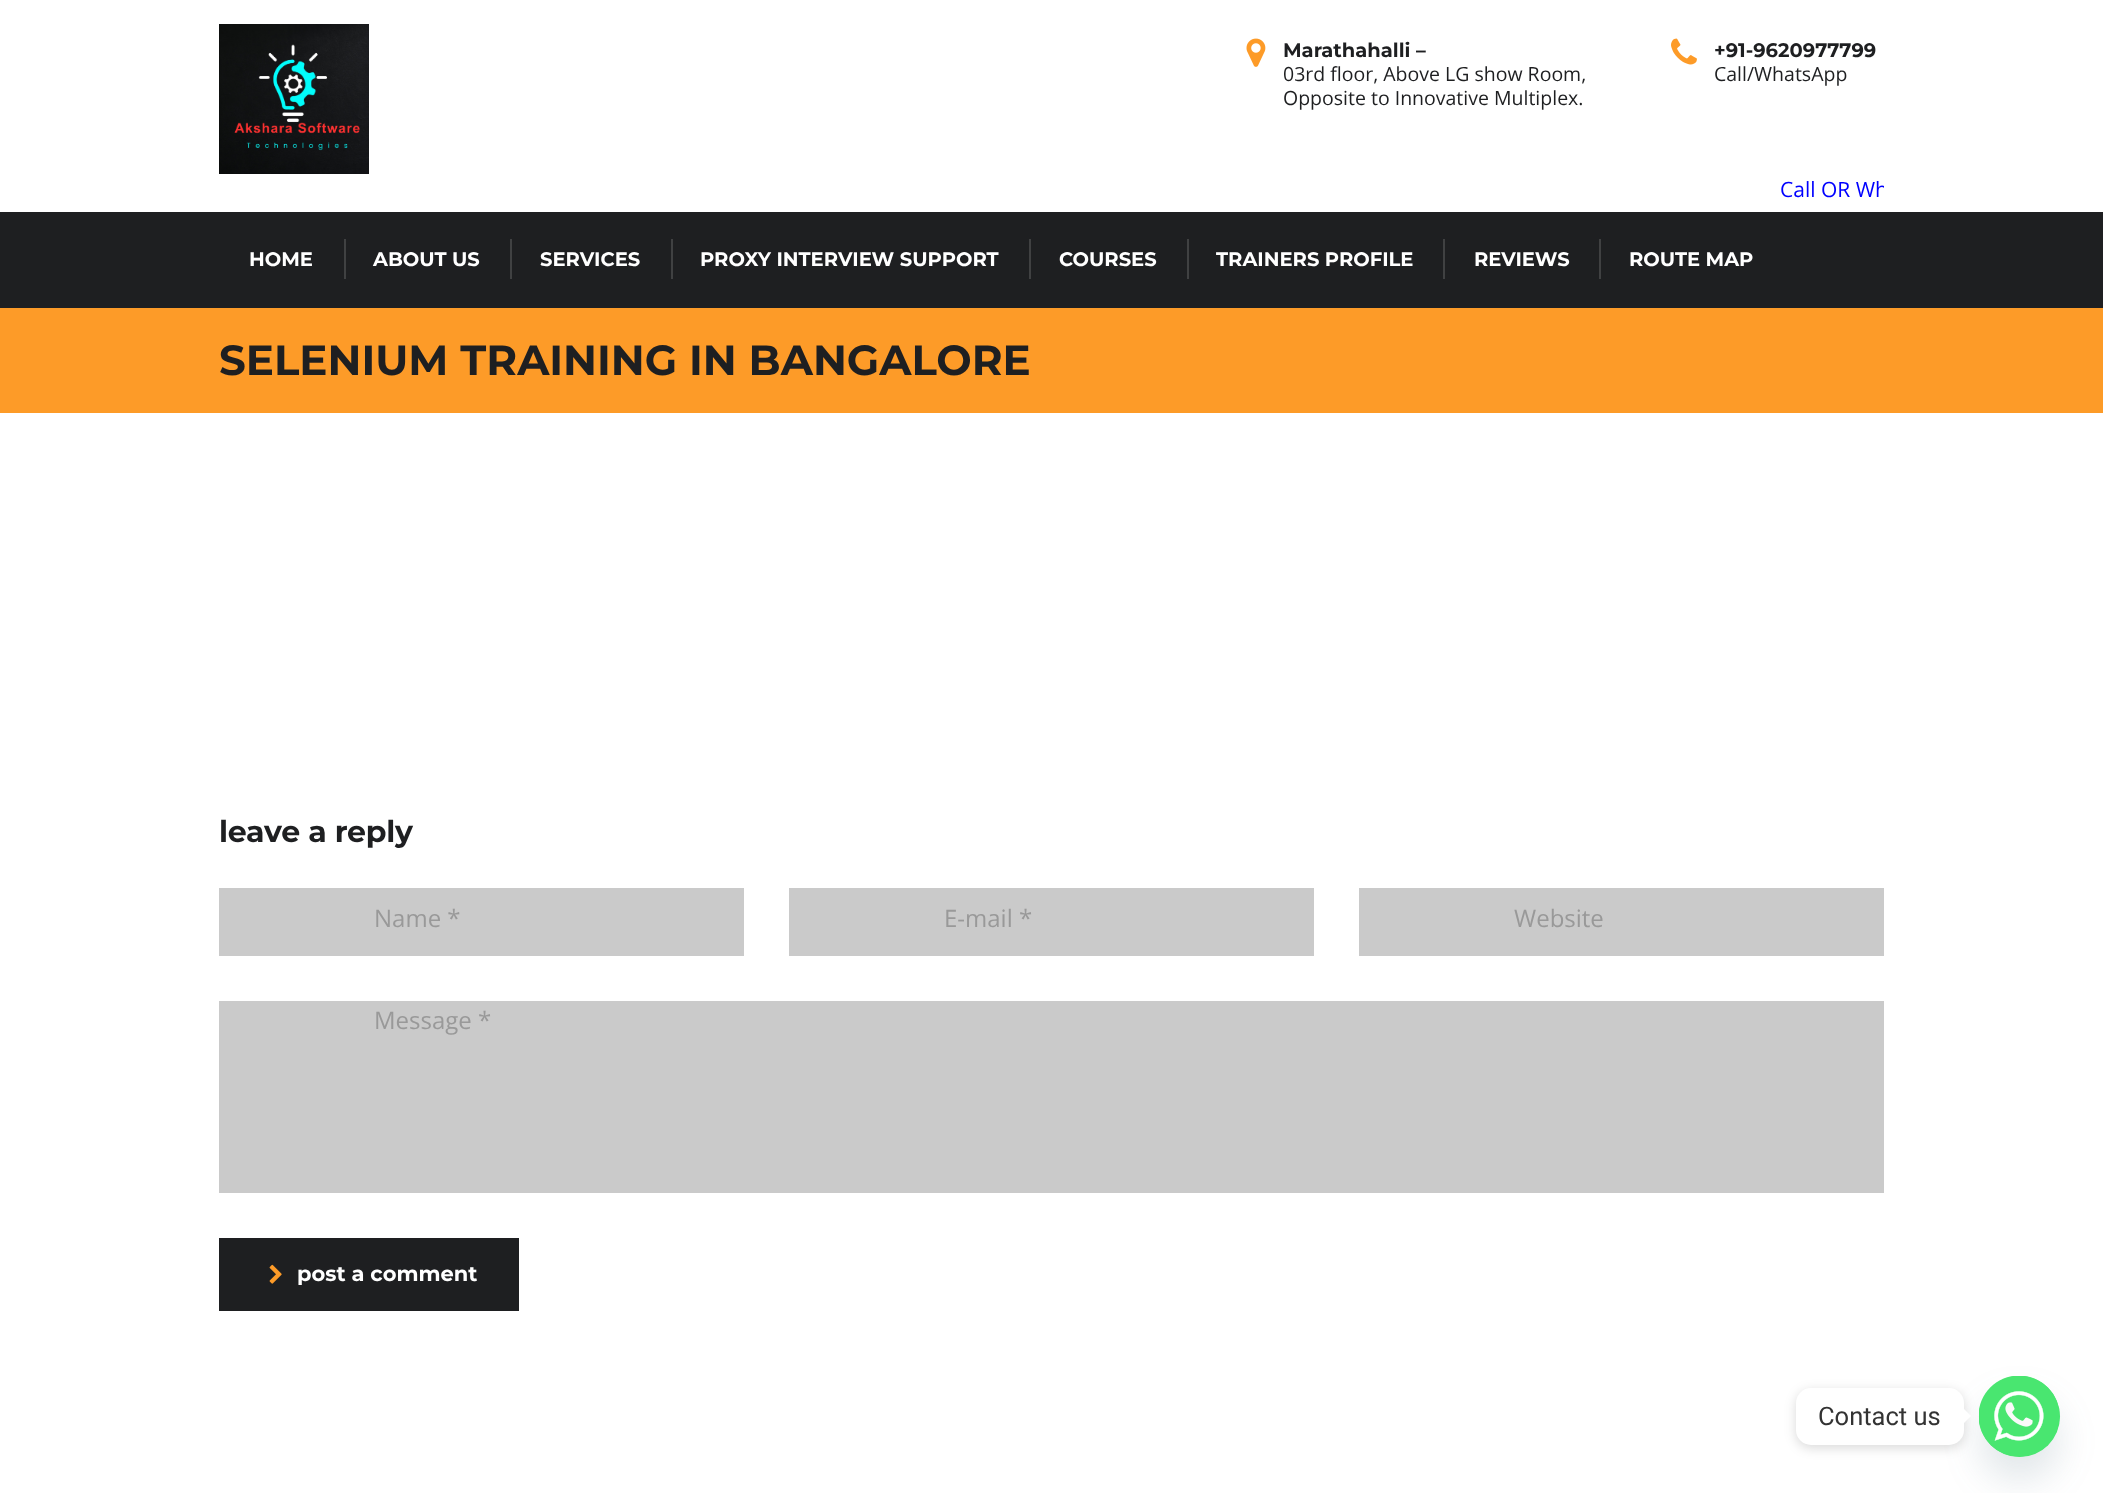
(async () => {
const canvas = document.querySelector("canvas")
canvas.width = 2103
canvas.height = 1493
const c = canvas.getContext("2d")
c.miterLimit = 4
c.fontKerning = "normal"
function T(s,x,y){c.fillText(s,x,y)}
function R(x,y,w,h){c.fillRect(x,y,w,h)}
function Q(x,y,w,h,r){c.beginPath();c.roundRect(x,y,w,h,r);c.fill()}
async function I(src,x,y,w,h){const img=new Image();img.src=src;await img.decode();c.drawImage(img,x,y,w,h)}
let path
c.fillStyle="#fff"
R(0,0,2103,1493)
await I("1.png",219,24,150,150)
await I("2.png",1246,38,20,29)
c.font="bold 19.5px Montserrat"
c.fillStyle="#1e1f21"
T("Marathahalli –",1283,57)
c.font="19.5px Open Sans"
T("03rd floor, Above LG show Room,",1283,81)
T("Opposite to Innovative Multiplex.",1283,105)
await I("3.png",1671,38,26,27)
c.font="bold 19.5px Montserrat"
T("+91-9620977799",1714,57)
c.font="19.5px Open Sans"
T("Call/WhatsApp",1714,81)
c.save()
c.beginPath()
c.rect(219,174,1665,30)
c.clip()
c.font="21px Open Sans"
c.fillStyle="#00f"
T("Call OR Wh",1780,197)
c.restore()
R(0,212,2103,96)
c.font="bold 19.5px Montserrat"
c.fillStyle="#fff"
T("HOME",249,266)
c.fillStyle="#404142"
R(344,239,2,40)
c.fillStyle="#fff"
T("ABOUT US",373,266)
c.fillStyle="#404142"
R(510,239,2,40)
c.fillStyle="#fff"
T("SERVICES",540,266)
c.fillStyle="#404142"
R(671,239,2,40)
c.fillStyle="#fff"
T("PROXY INTERVIEW SUPPORT",700,266)
c.fillStyle="#404142"
R(1029,239,2,40)
c.fillStyle="#fff"
T("COURSES",1059,266)
c.fillStyle="#404142"
R(1187,239,2,40)
c.fillStyle="#fff"
T("TRAINERS PROFILE",1216,266)
c.fillStyle="#404142"
R(1443,239,2,40)
c.fillStyle="#fff"
T("REVIEWS",1474,266)
c.fillStyle="#404142"
R(1599,239,2,40)
c.fillStyle="#fff"
T("ROUTE MAP",1629,266)
c.fillStyle="#fd9b28"
R(0,308,2103,105)
c.font="bold 42px Montserrat"
c.fillStyle="#1e1f21"
T("SELENIUM TRAINING IN BANGALORE",219,375)
c.letterSpacing="-0.25px"
c.font="bold 30px Montserrat"
T("leave a reply",219,842)
c.fillStyle="#cacaca"
R(219,888,525,68)
c.letterSpacing="0px"
c.font="24px Open Sans"
c.fillStyle="#999"
T("Name *",374,927)
c.fillStyle="#cacaca"
R(789,888,525,68)
c.fillStyle="#999"
T("E-mail *",944,927)
c.fillStyle="#cacaca"
R(1359,888,525,68)
c.fillStyle="#999"
T("Website",1514,927)
c.fillStyle="#cacaca"
R(219,1001,1665,192)
c.fillStyle="#999"
T("Message *",374,1029)
c.fillStyle="#1e1f21"
R(219,1238,300,73)
await I("4.png",269,1264,13,20)
c.font="bold 21px Montserrat"
c.fillStyle="#fff"
T("post a comment",297,1281)
c.fillStyle="#49687e29"
c.filter="blur(18px)"
c.beginPath()
c.roundRect(1979,1400,81,81,40.5)
c.fill()
c.filter="none"
c.fillStyle="#49e670"
c.beginPath()
c.arc(2019.5,1416.5,40.5,0,7)
c.fill()
await I("5.png",1979,1376,81,81)
c.fillStyle="#00000026"
c.filter="blur(6px)"
c.beginPath()
c.roundRect(1796,1391,168,57,15)
c.fill()
c.filter="none"
c.fillStyle="#fff"
Q(1796,1388,168,57,15)
c.font="25.5px Roboto"
c.fillStyle="#333"
T("Contact us",1818,1425)
c.fillStyle="#fff"
path = new Path2D("M1963.5 1423.5v-15l7.5 7.5z")
c.fill(path)
})()
